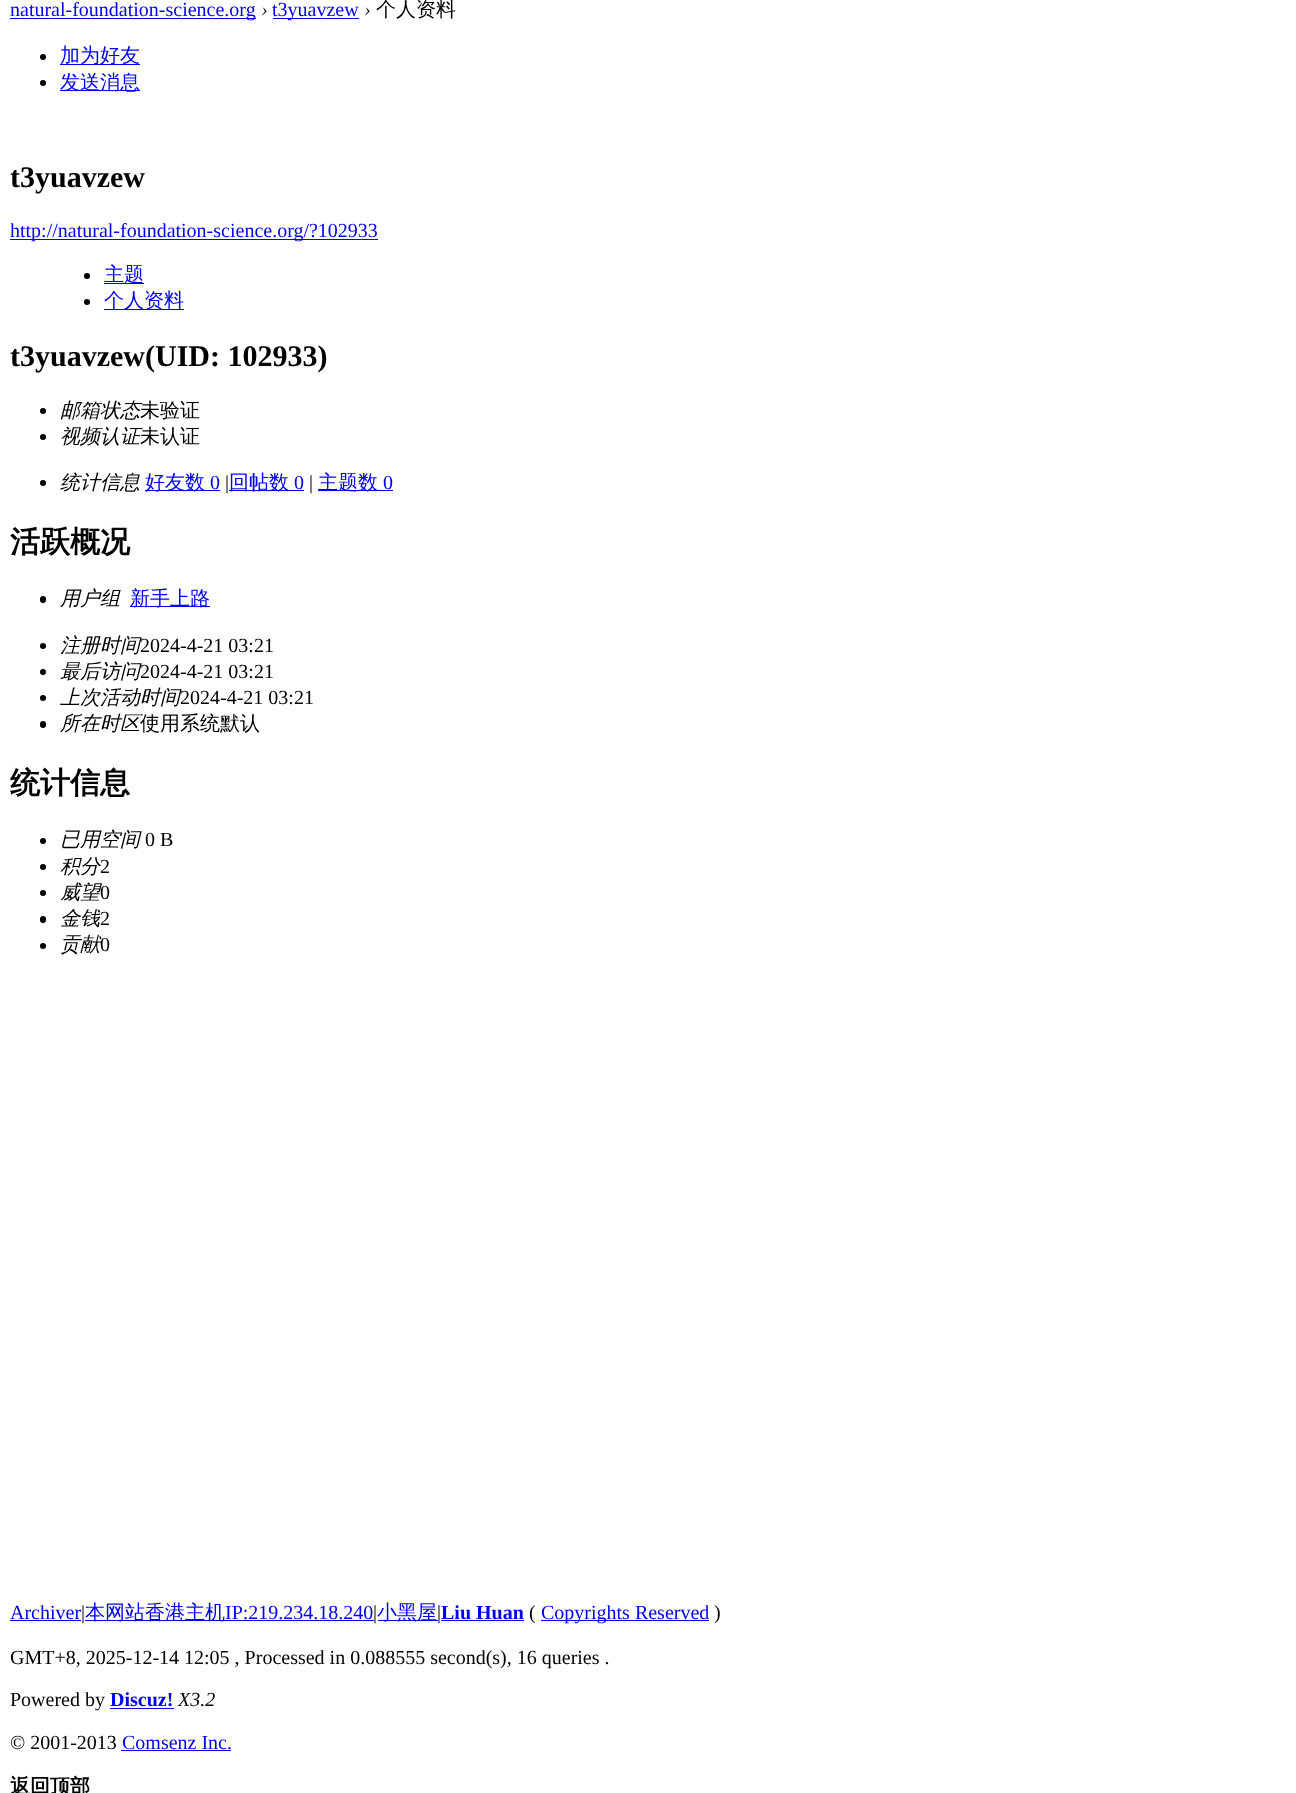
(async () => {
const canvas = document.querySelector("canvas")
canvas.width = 1296
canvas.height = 1793
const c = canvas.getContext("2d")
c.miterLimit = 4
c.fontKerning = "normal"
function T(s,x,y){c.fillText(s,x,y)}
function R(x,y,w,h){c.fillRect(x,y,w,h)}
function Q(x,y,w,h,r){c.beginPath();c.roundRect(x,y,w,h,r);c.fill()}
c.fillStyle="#fff"
R(0,0,1296,1793)
c.fillStyle="#00e"
R(10,18,246,1)
c.font="20px Liberation Serif"
T("natural-foundation-science.org",10,16)
c.font="italic 20px Liberation Serif"
c.fillStyle="#000"
T("›",261,16)
c.fillStyle="#00e"
R(273,18,86,1)
c.font="20px Liberation Serif"
T("t3yuavzew",272,16)
c.font="italic 20px Liberation Serif"
c.fillStyle="#000"
T("›",364,16)
c.font="500 20px WenQuanYi Zen Hei"
T("个人资料",376,16)
c.beginPath()
c.arc(43,57,3,0,7)
c.fill()
c.fillStyle="#00e"
R(60,64,80,1)
T("加为好友",60,62)
c.fillStyle="#000"
c.beginPath()
c.arc(43,83,3,0,7)
c.fill()
c.fillStyle="#00e"
R(60,90,80,1)
T("发送消息",60,89)
c.font="bold 30px Liberation Serif"
c.fillStyle="#000"
T("t3yuavzew",10,187)
c.fillStyle="#00e"
R(10,239,368,1)
c.font="20px Liberation Serif"
T("http://natural-foundation-science.org/?102933",10,237)
c.fillStyle="#000"
c.beginPath()
c.arc(87,276,3,0,7)
c.fill()
c.fillStyle="#00e"
R(104,283,40,1)
c.font="500 20px WenQuanYi Zen Hei"
T("主题",104,281)
c.fillStyle="#000"
c.beginPath()
c.arc(87,302,3,0,7)
c.fill()
c.fillStyle="#00e"
R(104,309,80,1)
T("个人资料",104,307)
c.font="bold 30px Liberation Serif"
c.fillStyle="#000"
T("t3yuavzew(UID: 102933)",10,366)
c.beginPath()
c.arc(43,411,3,0,7)
c.fill()
c.font="italic 500 20px WenQuanYi Zen Hei"
T("邮箱状态",60,417)
c.font="500 20px WenQuanYi Zen Hei"
T("未验证",140,417)
c.beginPath()
c.arc(43,437,3,0,7)
c.fill()
c.font="italic 500 20px WenQuanYi Zen Hei"
T("视频认证",60,443)
c.font="500 20px WenQuanYi Zen Hei"
T("未认证",140,443)
c.beginPath()
c.arc(43,483,3,0,7)
c.fill()
c.font="italic 500 20px WenQuanYi Zen Hei"
T("统计信息",60,489)
c.fillStyle="#00e"
R(145,490,75,1)
c.font="500 20px WenQuanYi Zen Hei"
T("好友数",145,489)
c.font="20px Liberation Serif"
T("0",210,489)
c.fillStyle="#000"
T("|",225,489)
c.fillStyle="#00e"
R(229,490,75,1)
c.font="500 20px WenQuanYi Zen Hei"
T("回帖数",229,489)
c.font="20px Liberation Serif"
T("0",294,489)
c.fillStyle="#000"
T("|",309,489)
c.fillStyle="#00e"
R(318,490,75,1)
c.font="500 20px WenQuanYi Zen Hei"
T("主题数",318,489)
c.font="20px Liberation Serif"
T("0",383,489)
c.font="bold 30px WenQuanYi Zen Hei"
c.fillStyle="#000"
T("活跃概况",10,552)
Q(40,596,6,7,3)
c.font="italic 500 20px WenQuanYi Zen Hei"
T("用户组",60,605)
c.fillStyle="#00e"
R(130,606,80,1)
c.font="500 20px WenQuanYi Zen Hei"
T("新手上路",130,605)
c.fillStyle="#000"
c.beginPath()
c.arc(43,646,3,0,7)
c.fill()
c.font="italic 500 20px WenQuanYi Zen Hei"
T("注册时间",60,652)
c.font="20px Liberation Serif"
T("2024-4-21 03:21",140,652)
c.beginPath()
c.arc(43,672,3,0,7)
c.fill()
c.font="italic 500 20px WenQuanYi Zen Hei"
T("最后访问",60,678)
c.font="20px Liberation Serif"
T("2024-4-21 03:21",140,678)
c.beginPath()
c.arc(43,698,3,0,7)
c.fill()
c.font="italic 500 20px WenQuanYi Zen Hei"
T("上次活动时间",60,704)
c.font="20px Liberation Serif"
T("2024-4-21 03:21",180,704)
Q(40,721,6,7,3)
c.font="italic 500 20px WenQuanYi Zen Hei"
T("所在时区",60,730)
c.font="500 20px WenQuanYi Zen Hei"
T("使用系统默认",140,730)
c.font="bold 30px WenQuanYi Zen Hei"
T("统计信息",10,793)
c.beginPath()
c.arc(43,841,3,0,7)
c.fill()
c.font="italic 500 20px WenQuanYi Zen Hei"
T("已用空间",60,846)
c.font="20px Liberation Serif"
T("0 B",145,846)
c.beginPath()
c.arc(43,867,3,0,7)
c.fill()
c.font="italic 500 20px WenQuanYi Zen Hei"
T("积分",60,873)
c.font="20px Liberation Serif"
T("2",100,873)
c.beginPath()
c.arc(43,893,3,0,7)
c.fill()
c.font="italic 500 20px WenQuanYi Zen Hei"
T("威望",60,899)
c.font="20px Liberation Serif"
T("0",100,899)
Q(40,916,6,7,3)
c.font="italic 500 20px WenQuanYi Zen Hei"
T("金钱",60,925)
c.font="20px Liberation Serif"
T("2",100,925)
c.beginPath()
c.arc(43,946,3,0,7)
c.fill()
c.font="italic 500 20px WenQuanYi Zen Hei"
T("贡献",60,951)
c.font="20px Liberation Serif"
T("0",100,951)
c.fillStyle="#00e"
T("Archiver",10,1619)
R(10,1620,71,1)
c.fillStyle="#000"
T("|",81,1619)
c.fillStyle="#00e"
R(85,1620,289,1)
c.font="500 20px WenQuanYi Zen Hei"
T("本网站香港主机",85,1619)
c.font="20px Liberation Serif"
T("IP:219.234.18.240",225,1619)
c.fillStyle="#000"
T("|",373,1619)
c.fillStyle="#00e"
R(378,1620,60,1)
c.font="500 20px WenQuanYi Zen Hei"
T("小黑屋",377,1619)
c.font="20px Liberation Serif"
c.fillStyle="#000"
T("|",437,1619)
c.font="bold 20px Liberation Serif"
c.fillStyle="#00e"
T("Liu Huan",441,1619)
R(441,1620,83,1)
c.font="20px Liberation Serif"
c.fillStyle="#000"
T("(",529,1619)
c.fillStyle="#00e"
R(541,1620,168,1)
T("Copyrights Reserved",541,1619)
c.fillStyle="#000"
T(")",714,1619)
T("GMT+8, 2025-12-14 12:05 , Processed in 0.088555 second(s), 16 queries .",10,1664)
T("Powered by",10,1706)
c.font="bold 20px Liberation Serif"
c.fillStyle="#00e"
T("Discuz!",110,1706)
R(110,1708,64,1)
c.font="italic 20px Liberation Serif"
c.fillStyle="#000"
T("X3.2",178,1706)
c.font="20px Liberation Serif"
T("© 2001-2013",10,1749)
c.fillStyle="#00e"
T("Comsenz Inc.",122,1749)
R(121,1750,110,1)
c.font="bold 20px WenQuanYi Zen Hei"
c.fillStyle="#000"
T("返回顶部",10,1793)
})()
